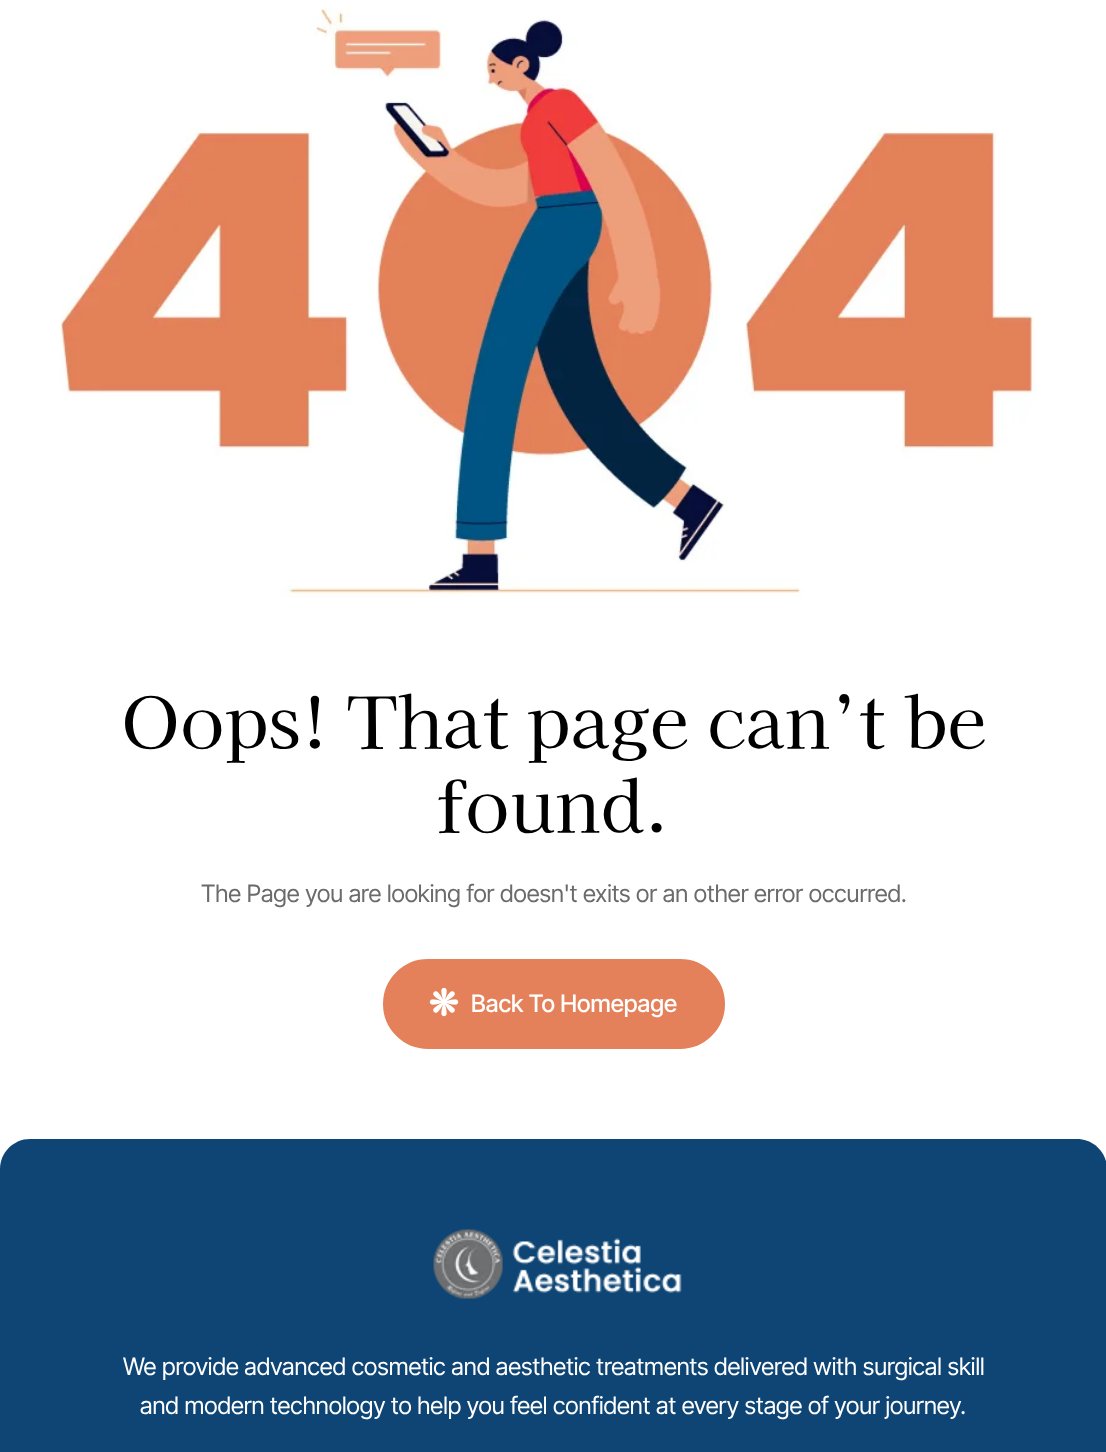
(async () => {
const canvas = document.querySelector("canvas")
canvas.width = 1106
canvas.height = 1452
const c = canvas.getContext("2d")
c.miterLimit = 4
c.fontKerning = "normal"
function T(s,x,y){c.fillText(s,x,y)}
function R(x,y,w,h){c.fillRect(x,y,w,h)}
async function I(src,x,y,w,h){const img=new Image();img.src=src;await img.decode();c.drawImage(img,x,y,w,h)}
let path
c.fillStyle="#fff"
R(0,0,1106,1452)
await I("1.png",60,7,976,591)
c.font="72px Kaisei HarunoUmi"
c.fillStyle="#000"
T("Oops! That page can’t be",121,749)
T("found.",437,833)
c.font="24px Inter Tight"
c.fillStyle="#6b6b6b"
T("The Page you are looking for doesn't exits or an other error occurred.",201,902)
c.fillStyle="#e4815a"
c.beginPath()
c.roundRect(384,960,340,88,44)
c.fill()
c.strokeStyle="#e4815a"
c.lineWidth=2
c.stroke()
await I("2.png",429,987,30,30)
c.font="500 24px Inter Tight"
c.fillStyle="#fff"
T("Back To Homepage",471,1012)
c.fillStyle="#0e4574"
path = new Path2D("M30 1139h1047c16.5 0 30 13.5 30 30v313h-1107v-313c0-16.5 13.5-30 30-30z")
c.fill(path)
await I("3.png",433,1229,249,70)
c.font="24px Inter Tight"
c.fillStyle="#fff"
T("We provide advanced cosmetic and aesthetic treatments delivered with surgical skill",123,1375)
T("and modern technology to help you feel confident at every stage of your journey.",140,1414)
})()
